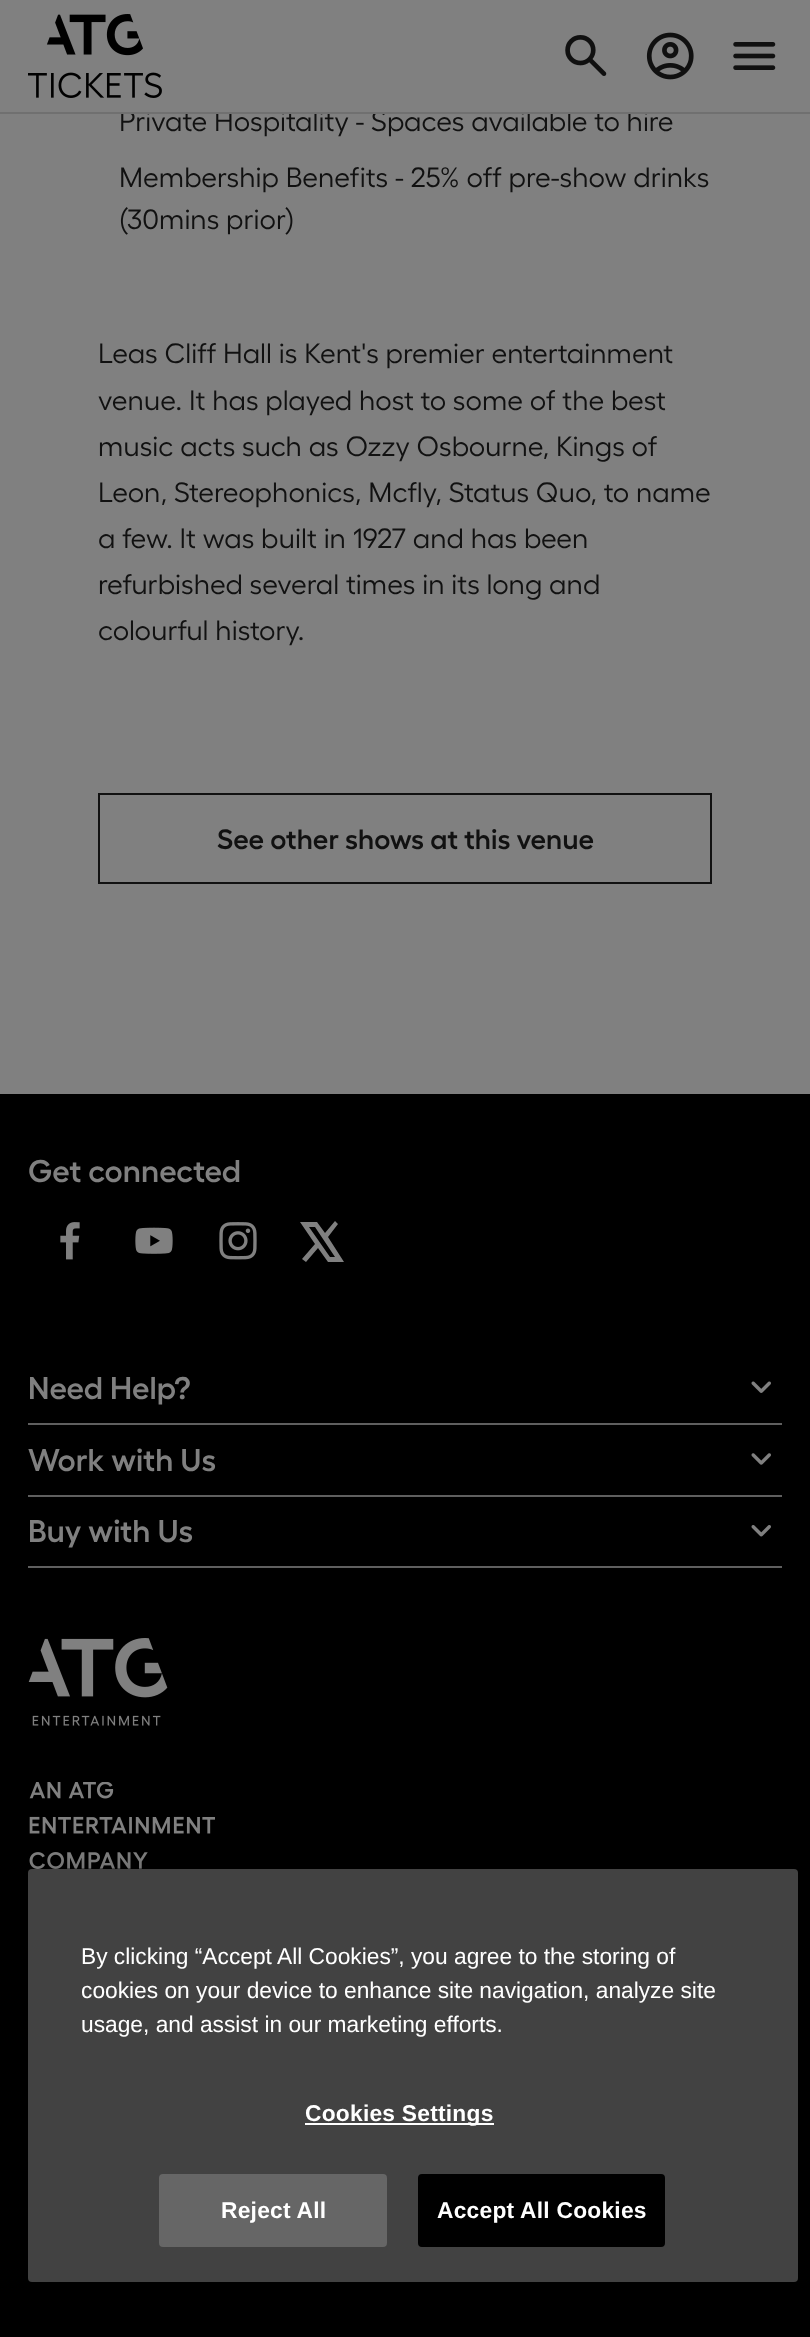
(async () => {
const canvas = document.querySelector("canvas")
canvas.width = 810
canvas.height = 2337
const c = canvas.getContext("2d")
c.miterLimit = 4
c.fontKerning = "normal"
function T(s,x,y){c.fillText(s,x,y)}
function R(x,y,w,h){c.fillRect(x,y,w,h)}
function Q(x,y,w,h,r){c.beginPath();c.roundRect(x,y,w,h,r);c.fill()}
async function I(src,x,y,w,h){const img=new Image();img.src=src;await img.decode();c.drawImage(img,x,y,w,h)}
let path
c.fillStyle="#808080"
R(0,0,810,2337)
c.font="28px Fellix"
c.fillStyle="#111"
T("Private Hospitality - Spaces available to hire",119,131)
c.fillStyle="#707070"
R(0,112,810,2)
c.fillStyle="#808080"
R(121,111,526,1)
await I("1.png",28,14,134,84)
await I("2.png",565,35,42,41)
await I("3.png",646,32,48,48)
await I("4.png",733,42,43,28)
c.fillStyle="#111"
T("Membership Benefits - 25% off pre-show drinks",119,187)
T("(30mins prior)",119,229)
T("Leas Cliff Hall is Kent's premier entertainment",98,363)
T("venue. It has played host to some of the best",98,410)
T("music acts such as Ozzy Osbourne, Kings of",98,456)
T("Leon, Stereophonics, Mcfly, Status Quo, to name",98,502)
T("a few. It was built in 1927 and has been",98,548)
T("refurbished several times in its long and",98,594)
T("colourful history.",98,640)
c.strokeStyle="#111"
c.lineWidth=2
c.strokeRect(99,794,612,89)
c.font="600 28px Fellix"
T("See other shows at this venue",217,849)
c.fillStyle="#000"
R(0,1094,810,1243)
c.font="600 31.5px Fellix"
c.fillStyle="#808080"
T("Get connected",28,1182)
await I("5.png",60,1222,20,38)
await I("6.png",135,1227,38,27)
await I("7.png",219,1222,38,38)
path = new Path2D("M338 1224l-10 13l16 25h-16l-10-14l-12 14l-4-3l13-15l-15-22h17l8 11l10-12zm-29 3l21 30h5l-20-30z")
c.fill(path,"evenodd")
c.fillStyle="#5f5f5f"
R(28,1423,754,2)
c.fillStyle="#808080"
T("Need Help?",28,1399)
await I("8.png",751,1381,20,12)
c.fillStyle="#5f5f5f"
R(28,1495,754,2)
c.fillStyle="#808080"
T("Work with Us",28,1471)
await I("9.png",751,1453,20,12)
c.fillStyle="#5f5f5f"
R(28,1566,754,2)
c.fillStyle="#808080"
T("Buy with Us",28,1542)
await I("10.png",751,1525,20,12)
await I("11.png",28,1638,140,88)
await I("12.png",29,1782,186,87)
c.fillStyle="#00000033"
c.filter="blur(16px)"
c.beginPath()
c.roundRect(28,1869,770,413,4)
c.fill()
c.filter="none"
c.fillStyle="#424242"
Q(28,1869,770,413,4)
c.font="22.75px Liberation Sans"
c.fillStyle="#fff"
T("By clicking “Accept All Cookies”, you agree to the storing of",81,1964)
T("cookies on your device to enhance site navigation, analyze site",81,1998)
T("usage, and assist in our marketing efforts.",81,2032)
R(305,2123,189,2)
c.letterSpacing="0.25px"
c.font="bold 22.75px Liberation Sans"
T("Cookies Settings",305,2121)
c.fillStyle="#666"
c.beginPath()
c.roundRect(160,2175,226,71,3)
c.fill()
c.strokeStyle="#666"
c.stroke()
c.fillStyle="#fff"
T("Reject All",221,2218)
c.fillStyle="#000"
c.beginPath()
c.roundRect(419,2175,245,71,3)
c.fill()
c.strokeStyle="#000"
c.stroke()
c.fillStyle="#fff"
T("Accept All Cookies",437,2218)
})()
